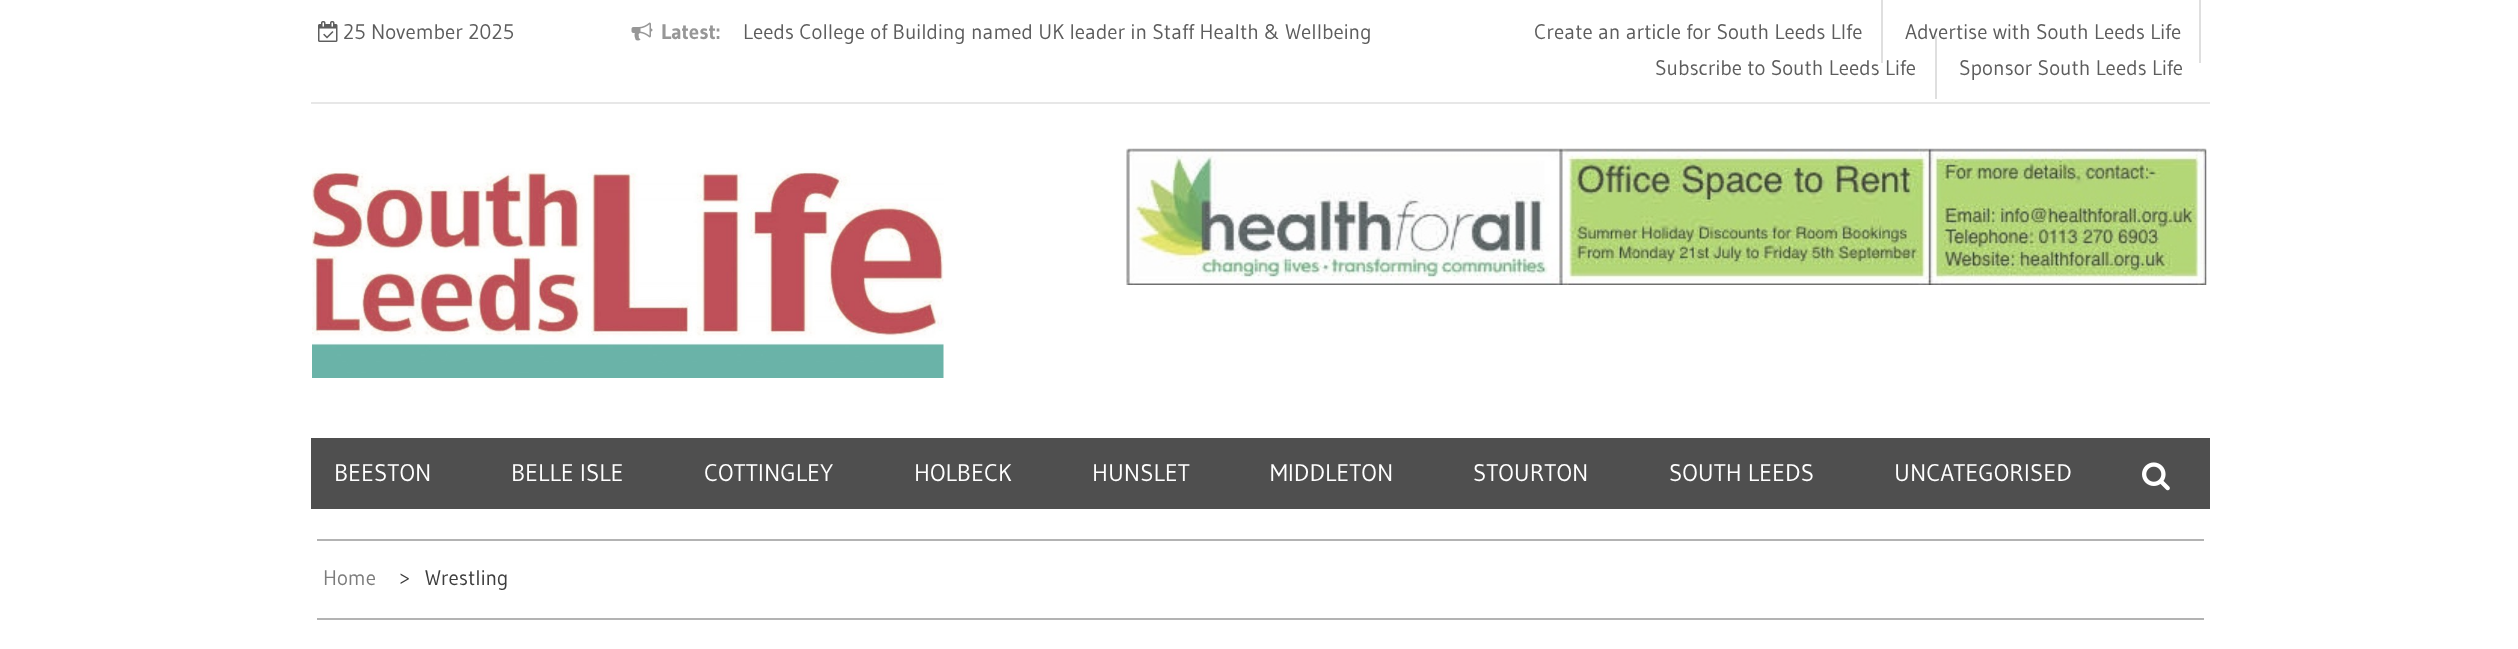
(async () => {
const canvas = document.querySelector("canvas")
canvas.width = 2518
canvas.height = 649
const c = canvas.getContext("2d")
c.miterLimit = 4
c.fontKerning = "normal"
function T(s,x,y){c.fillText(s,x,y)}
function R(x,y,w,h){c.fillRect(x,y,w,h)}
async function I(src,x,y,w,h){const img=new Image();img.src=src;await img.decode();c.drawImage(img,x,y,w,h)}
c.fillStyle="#fff"
R(0,0,2518,649)
c.fillStyle="#e7e7e7"
R(311,102,1899,2)
await I("1.png",318,21,20,21)
c.font="21px Gudea"
c.fillStyle="#5d5d5d"
T("25 November 2025",343,39)
await I("2.png",631,22,22,19)
c.font="bold 21px Gudea"
c.fillStyle="#979797"
T("Latest:",661,39)
c.font="21px Gudea"
c.fillStyle="#5d5d5d"
T("Leeds College of Building named UK leader in Staff Health & Wellbeing",743,39)
T("Create an article for South Leeds LIfe",1534,39)
c.fillStyle="#dfdfdf"
R(1881,0,2,63)
c.fillStyle="#5d5d5d"
T("Advertise with South Leeds Life",1905,39)
c.fillStyle="#dfdfdf"
R(2199,0,2,63)
c.fillStyle="#5d5d5d"
T("Subscribe to South Leeds Life",1655,75)
c.fillStyle="#dfdfdf"
R(1935,36,2,63)
c.fillStyle="#5d5d5d"
T("Sponsor South Leeds Life",1959,75)
await I("3.png",312,168,632,210)
await I("4.png",1126,148,1081,137)
c.fillStyle="#4f4f4f"
R(311,438,1899,71)
c.font="24px Gudea"
c.fillStyle="#fff"
T("BEESTON",334,481)
T("BELLE ISLE",511,481)
T("COTTINGLEY",704,481)
T("HOLBECK",914,481)
T("HUNSLET",1092,481)
T("MIDDLETON",1270,481)
T("STOURTON",1473,481)
T("SOUTH LEEDS",1669,481)
T("UNCATEGORISED",1894,481)
await I("5.png",2142,462,28,29)
c.fillStyle="#b3b3b3"
R(317,539,1887,2)
R(317,618,1887,2)
c.font="21px Gudea"
c.fillStyle="#7d7d7d"
T("Home",323,585)
c.fillStyle="#3d3d3d"
T(">",399,585)
T("Wrestling",425,585)
})()
